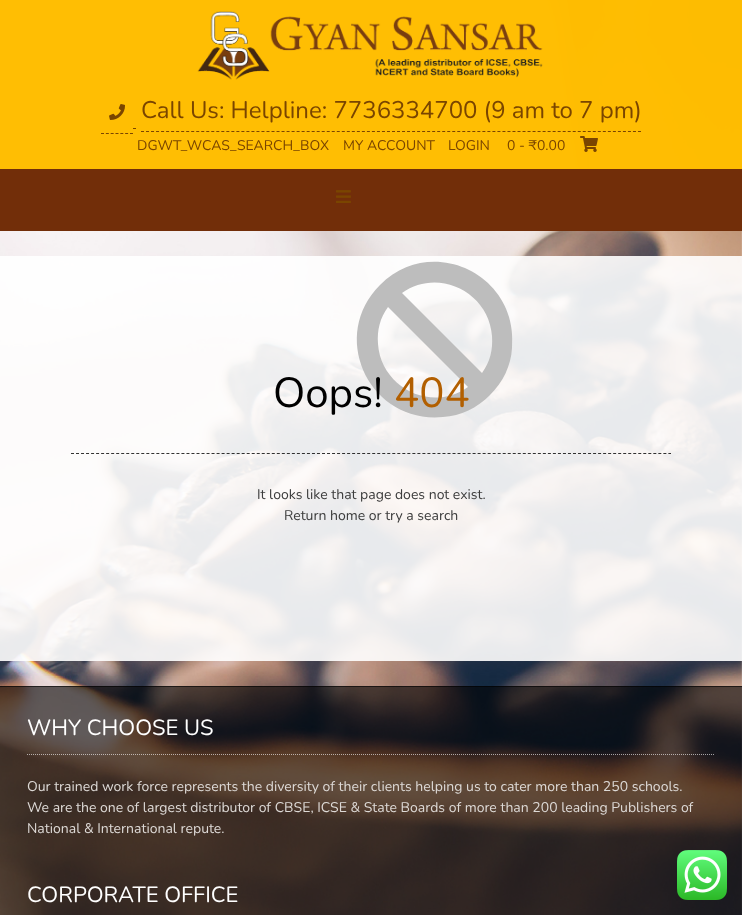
(async () => {
const canvas = document.querySelector("canvas")
canvas.width = 742
canvas.height = 915
const c = canvas.getContext("2d")
c.miterLimit = 4
c.fontKerning = "normal"
function T(s,x,y){c.fillText(s,x,y)}
function R(x,y,w,h){c.fillRect(x,y,w,h)}
async function I(src,x,y,w,h){const img=new Image();img.src=src;await img.decode();c.drawImage(img,x,y,w,h)}
let path
c.fillStyle="#fff"
R(0,0,742,915)
await I("1.png",0,0,742,915)
c.fillStyle="#ffbd00fc"
R(0,0,742,169)
await I("2.png",197,11,346,69)
path = new Path2D("M101 133.5h32")
c.strokeStyle="#7a4500"
c.setLineDash([3,1.83])
c.stroke(path)
path = new Path2D("M133 128.5h3")
c.setLineDash([])
c.stroke(path)
path = new Path2D("M141 131.5h500")
c.setLineDash([3,2.02])
c.stroke(path)
await I("3.png",109,104,16,16)
c.font="24px Nunito"
c.fillStyle="#7a4500"
T("Call Us: Helpline: 7736334700 (9 am to 7 pm)",141,118)
c.font="14px Nunito"
T("DGWT_WCAS_SEARCH_BOX",137,150)
T("MY ACCOUNT",343,150)
T("LOGIN",448,150)
T("0 - ₹0.00",507,150)
await I("4.png",580,136,18,16)
c.fillStyle="#722e09"
R(0,169,742,62)
await I("5.png",336,190,15,13)
c.fillStyle="#ffffffe6"
R(0,256,742,405)
c.fillStyle="#bdbdbd"
path = new Path2D("M380 285c52-52 139-10 132 63c-1 18-9 34-22 47c-13 13-29 21-47 22c-73 7-115-80-63-132zm112 51c-3-44-54-69-90-43l80 80c8-11 11-23 10-37zm-114 8c3 44 54 69 90 43l-80-80c-8 11-11 23-10 37z")
c.fill(path)
path = new Path2D("M71 453.5h600")
c.strokeStyle="#000000cc"
c.stroke(path)
c.font="42px Nunito"
c.fillStyle="#000"
T("Oops!",273,407)
c.fillStyle="#b25f00"
T("404",394,407)
c.font="14px Nunito"
c.fillStyle="#3c3c3c"
T("It looks like that page does not exist.",257,499)
T("Return home or try a search",284,520)
c.fillStyle="#00000099"
R(0,686,742,229)
R(0,686,742,1)
path = new Path2D("M27 754.5h688")
c.strokeStyle="#ffffff99"
c.setLineDash([1,1])
c.stroke(path)
c.font="22px Nunito"
c.fillStyle="#fff"
T("WHY CHOOSE US",27,735)
c.font="14px Nunito"
c.fillStyle="#ddd9d6"
T("Our trained work force represents the diversity of their clients helping us to cater more than 250 schools.",27,791)
T("We are the one of largest distributor of CBSE, ICSE & State Boards of more than 200 leading Publishers of",27,812)
T("National & International repute.",27,833)
c.font="22px Nunito"
c.fillStyle="#fff"
T("CORPORATE OFFICE",27,902)
await I("6.png",677,850,50,50)
})()
